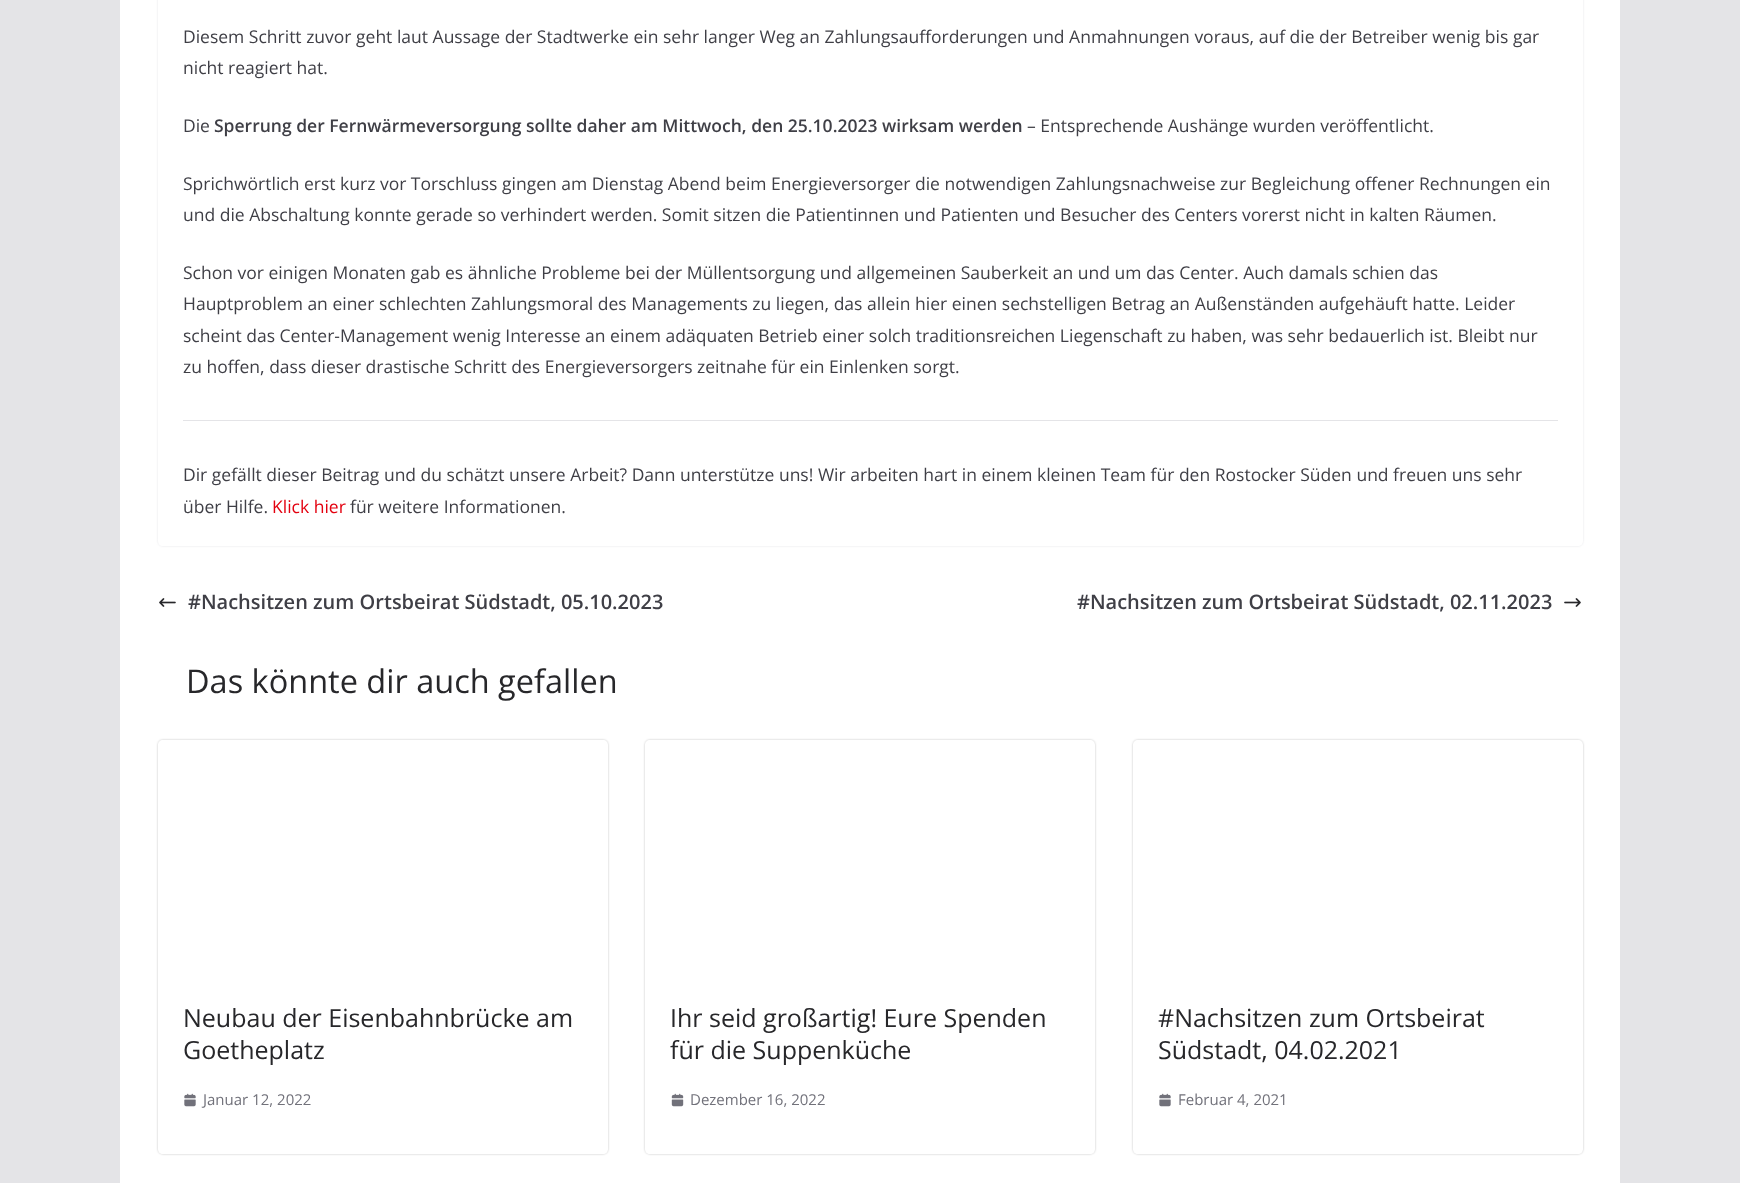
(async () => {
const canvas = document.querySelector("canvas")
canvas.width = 1740
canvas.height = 1183
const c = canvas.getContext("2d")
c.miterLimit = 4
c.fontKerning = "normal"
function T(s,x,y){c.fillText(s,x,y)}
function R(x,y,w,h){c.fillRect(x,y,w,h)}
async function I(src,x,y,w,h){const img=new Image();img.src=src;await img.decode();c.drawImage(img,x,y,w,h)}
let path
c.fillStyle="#e4e4e7"
R(0,0,1740,1183)
c.fillStyle="#fff"
R(120,0,1500,1183)
c.save()
path = new Path2D("M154 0h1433v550h-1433zm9-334h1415c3 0 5 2 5 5v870c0 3-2 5-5 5h-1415c-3 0-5-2-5-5v-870c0-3 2-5 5-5z")
c.clip(path,"evenodd")
c.fillStyle="#e4e4e7"
c.filter="blur(1px)"
c.beginPath()
c.roundRect(158,-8,1425,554,5)
c.fill()
c.filter="none"
c.restore()
c.font="17.5px Open Sans"
c.fillStyle="#3f3f46"
T("Diesem Schritt zuvor geht laut Aussage der Stadtwerke ein sehr langer Weg an Zahlungsaufforderungen und Anmahnungen voraus, auf die der Betreiber wenig bis gar",183,43)
T("nicht reagiert hat.",183,74)
T("Die",183,132)
c.font="600 17.5px Open Sans"
T("Sperrung der Fernwärmeversorgung sollte daher am Mittwoch, den 25.10.2023 wirksam werden",214,132)
c.font="17.5px Open Sans"
T("– Entsprechende Aushänge wurden veröffentlicht.",1027,132)
T("Sprichwörtlich erst kurz vor Torschluss gingen am Dienstag Abend beim Energieversorger die notwendigen Zahlungsnachweise zur Begleichung offener Rechnungen ein",183,190)
T("und die Abschaltung konnte gerade so verhindert werden. Somit sitzen die Patientinnen und Patienten und Besucher des Centers vorerst nicht in kalten Räumen.",183,221)
T("Schon vor einigen Monaten gab es ähnliche Probleme bei der Müllentsorgung und allgemeinen Sauberkeit an und um das Center. Auch damals schien das",183,279)
T("Hauptproblem an einer schlechten Zahlungsmoral des Managements zu liegen, das allein hier einen sechstelligen Betrag an Außenständen aufgehäuft hatte. Leider",183,310)
T("scheint das Center-Management wenig Interesse an einem adäquaten Betrieb einer solch traditionsreichen Liegenschaft zu haben, was sehr bedauerlich ist. Bleibt nur",183,342)
T("zu hoffen, dass dieser drastische Schritt des Energieversorgers zeitnahe für ein Einlenken sorgt.",183,373)
c.fillStyle="#e4e4e7"
R(183,420,1375,1)
c.fillStyle="#3f3f46"
T("Dir gefällt dieser Beitrag und du schätzt unsere Arbeit? Dann unterstütze uns! Wir arbeiten hart in einem kleinen Team für den Rostocker Süden und freuen uns sehr",183,481)
T("über Hilfe.",183,513)
c.fillStyle="#e3000f"
T("Klick hier",272,513)
c.fillStyle="#3f3f46"
T("für weitere Informationen.",350,513)
await I("1.png",159,598,17,9)
c.font="600 20px Open Sans"
T("#Nachsitzen zum Ortsbeirat Südstadt, 05.10.2023",188,609)
T("#Nachsitzen zum Ortsbeirat Südstadt, 02.11.2023",1077,609)
await I("2.png",1564,598,17,9)
c.font="32.5px Open Sans"
c.fillStyle="#27272a"
T("Das könnte dir auch gefallen",186,693)
c.save()
path = new Path2D("M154 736h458v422h-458zm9 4h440c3 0 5 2 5 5v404c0 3-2 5-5 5h-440c-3 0-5-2-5-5v-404c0-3 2-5 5-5z")
c.clip(path,"evenodd")
c.fillStyle="#0000003d"
c.filter="blur(1px)"
c.beginPath()
c.roundRect(158,740,450,414,5)
c.fill()
c.filter="none"
c.restore()
c.font="25px Open Sans"
T("Neubau der Eisenbahnbrücke am",183,1027)
T("Goetheplatz",183,1059)
await I("3.png",184,1093,12,14)
c.font="15px Open Sans"
c.fillStyle="#71717a"
T("Januar 12, 2022",203,1105)
c.save()
path = new Path2D("M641 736h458v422h-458zm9 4h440c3 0 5 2 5 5v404c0 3-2 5-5 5h-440c-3 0-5-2-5-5v-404c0-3 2-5 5-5z")
c.clip(path,"evenodd")
c.fillStyle="#0000003d"
c.filter="blur(1px)"
c.beginPath()
c.roundRect(645,740,450,414,5)
c.fill()
c.filter="none"
c.restore()
c.font="25px Open Sans"
c.fillStyle="#27272a"
T("Ihr seid großartig! Eure Spenden",670,1027)
T("für die Suppenküche",670,1059)
await I("4.png",671,1093,13,14)
c.font="15px Open Sans"
c.fillStyle="#71717a"
T("Dezember 16, 2022",690,1105)
c.save()
path = new Path2D("M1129 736h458v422h-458zm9 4h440c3 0 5 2 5 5v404c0 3-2 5-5 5h-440c-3 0-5-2-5-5v-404c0-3 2-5 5-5z")
c.clip(path,"evenodd")
c.fillStyle="#0000003d"
c.filter="blur(1px)"
c.beginPath()
c.roundRect(1133,740,450,414,5)
c.fill()
c.filter="none"
c.restore()
c.font="25px Open Sans"
c.fillStyle="#27272a"
T("#Nachsitzen zum Ortsbeirat",1158,1027)
T("Südstadt, 04.02.2021",1158,1059)
await I("3.png",1159,1093,12,14)
c.font="15px Open Sans"
c.fillStyle="#71717a"
T("Februar 4, 2021",1178,1105)
})()
